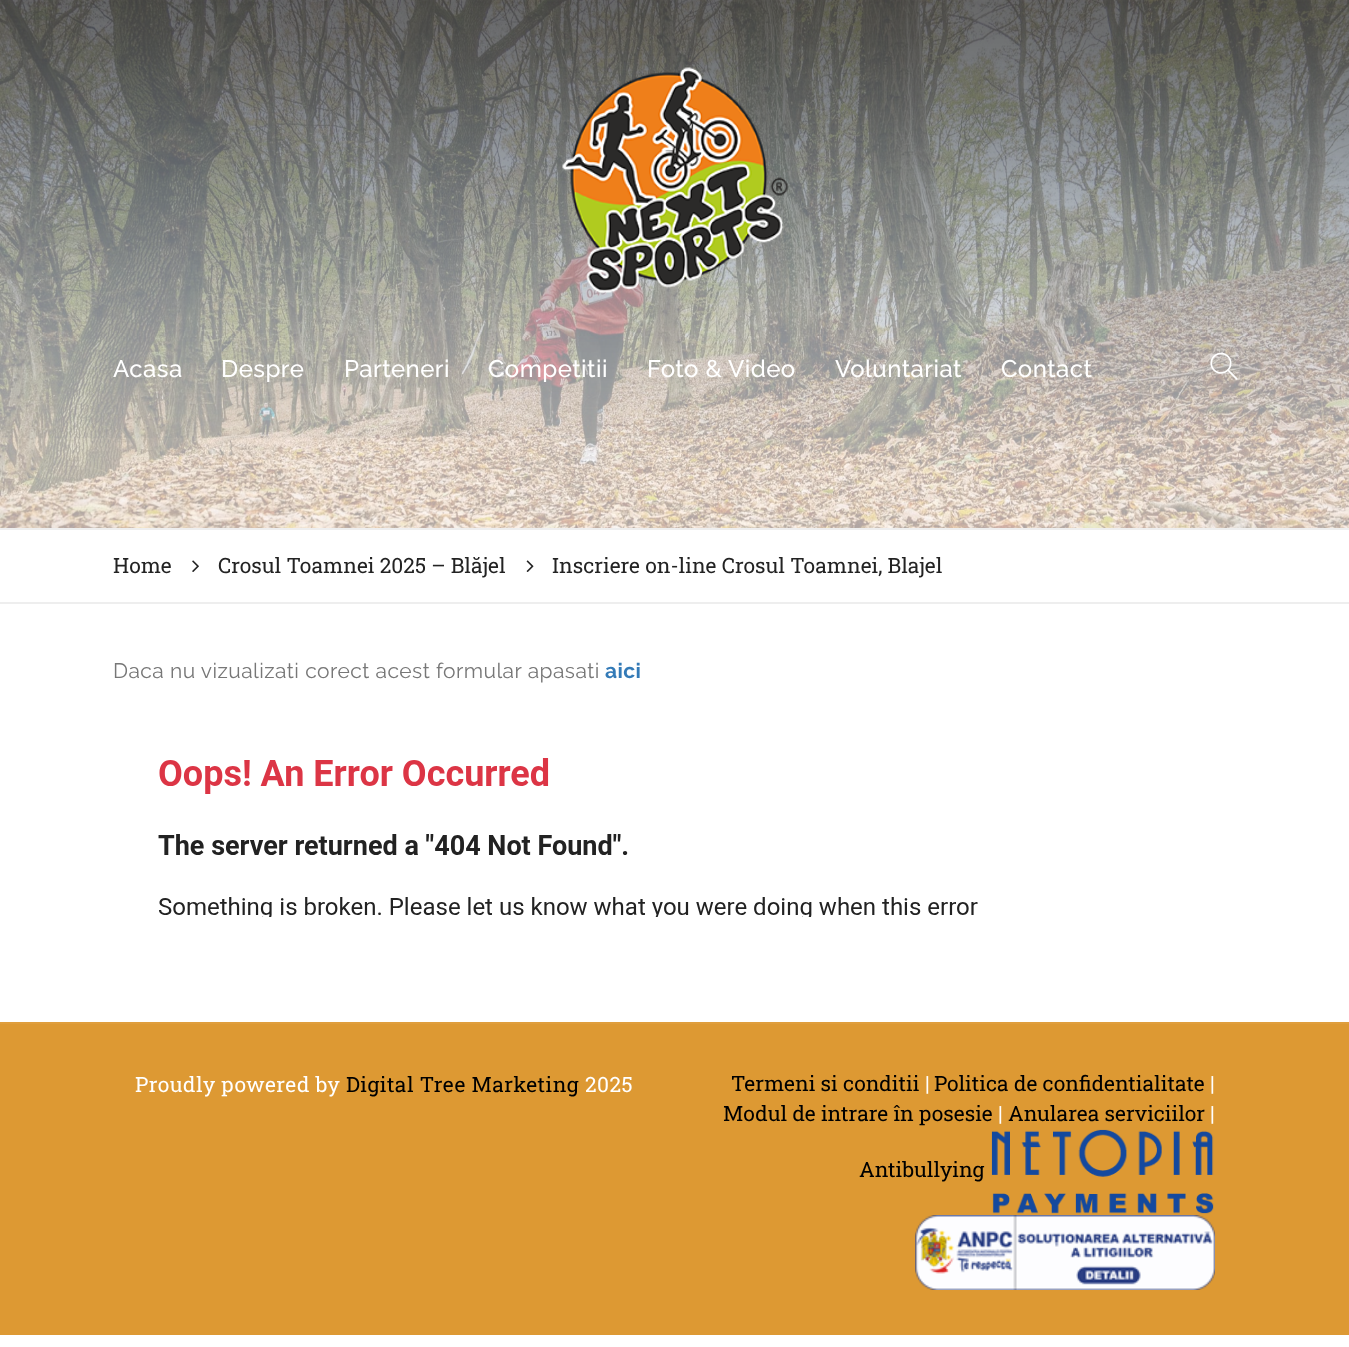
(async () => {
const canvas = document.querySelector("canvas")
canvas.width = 1349
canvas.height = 1347
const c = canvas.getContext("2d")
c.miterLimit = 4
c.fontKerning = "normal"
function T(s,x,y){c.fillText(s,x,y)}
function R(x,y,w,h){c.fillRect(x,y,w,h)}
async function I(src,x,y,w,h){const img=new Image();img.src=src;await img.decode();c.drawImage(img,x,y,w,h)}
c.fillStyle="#fff"
R(0,0,1349,1347)
await I("1.png",0,0,1349,528)
await I("2.png",0,0,1349,438)
await I("3.png",562,67,226,226)
c.letterSpacing="0.45px"
c.font="500 24px Raleway"
T("Acasa",113,377)
T("Despre",221,377)
T("Parteneri",344,377)
T("Competitii",488,377)
T("Foto & Video",647,377)
T("Voluntariat",835,377)
T("Contact",1001,377)
await I("4.png",1210,352,28,28)
c.fillStyle="#eee"
R(0,528,1349,2)
R(0,602,1349,2)
c.letterSpacing="0px"
c.font="21px Roboto Slab"
c.fillStyle="#232323"
T("Home",113,573)
await I("5.png",192,560,7,12)
T("Crosul Toamnei 2025 – Blăjel",218,573)
await I("6.png",526,560,8,12)
T("Inscriere on-line Crosul Toamnei, Blajel",552,573)
c.letterSpacing="0.45px"
c.font="21px Raleway"
c.fillStyle="#777"
T("Daca nu vizualizati corect acest formular apasati",113,678)
c.font="bold 21px Raleway"
c.fillStyle="#337ab7"
T("aici",605,678)
await I("7.png",158,758,820,159)
c.fillStyle="#d93"
R(0,1024,1349,311)
c.fillStyle="#df9e3d"
R(0,1022,1349,2)
c.font="21px Roboto Slab"
c.fillStyle="#fff"
T("Proudly powered by",135,1092)
c.fillStyle="#000"
T("Digital Tree Marketing",346,1092)
c.fillStyle="#fff"
T("2025",585,1092)
c.letterSpacing="0px"
c.fillStyle="#000"
T("Termeni si conditii",731,1091)
c.fillStyle="#fff"
T("|",925,1091)
c.fillStyle="#000"
T("Politica de confidentialitate",934,1091)
c.fillStyle="#fff"
T("|",1210,1091)
c.fillStyle="#000"
T("Modul de intrare în posesie",723,1121)
c.fillStyle="#fff"
T("|",998,1121)
c.fillStyle="#000"
T("Anularea serviciilor",1008,1121)
c.fillStyle="#fff"
T("|",1210,1121)
c.fillStyle="#000"
T("Antibullying",859,1177)
await I("8.png",991,1129,223,85)
await I("9.png",915,1215,300,75)
})()
